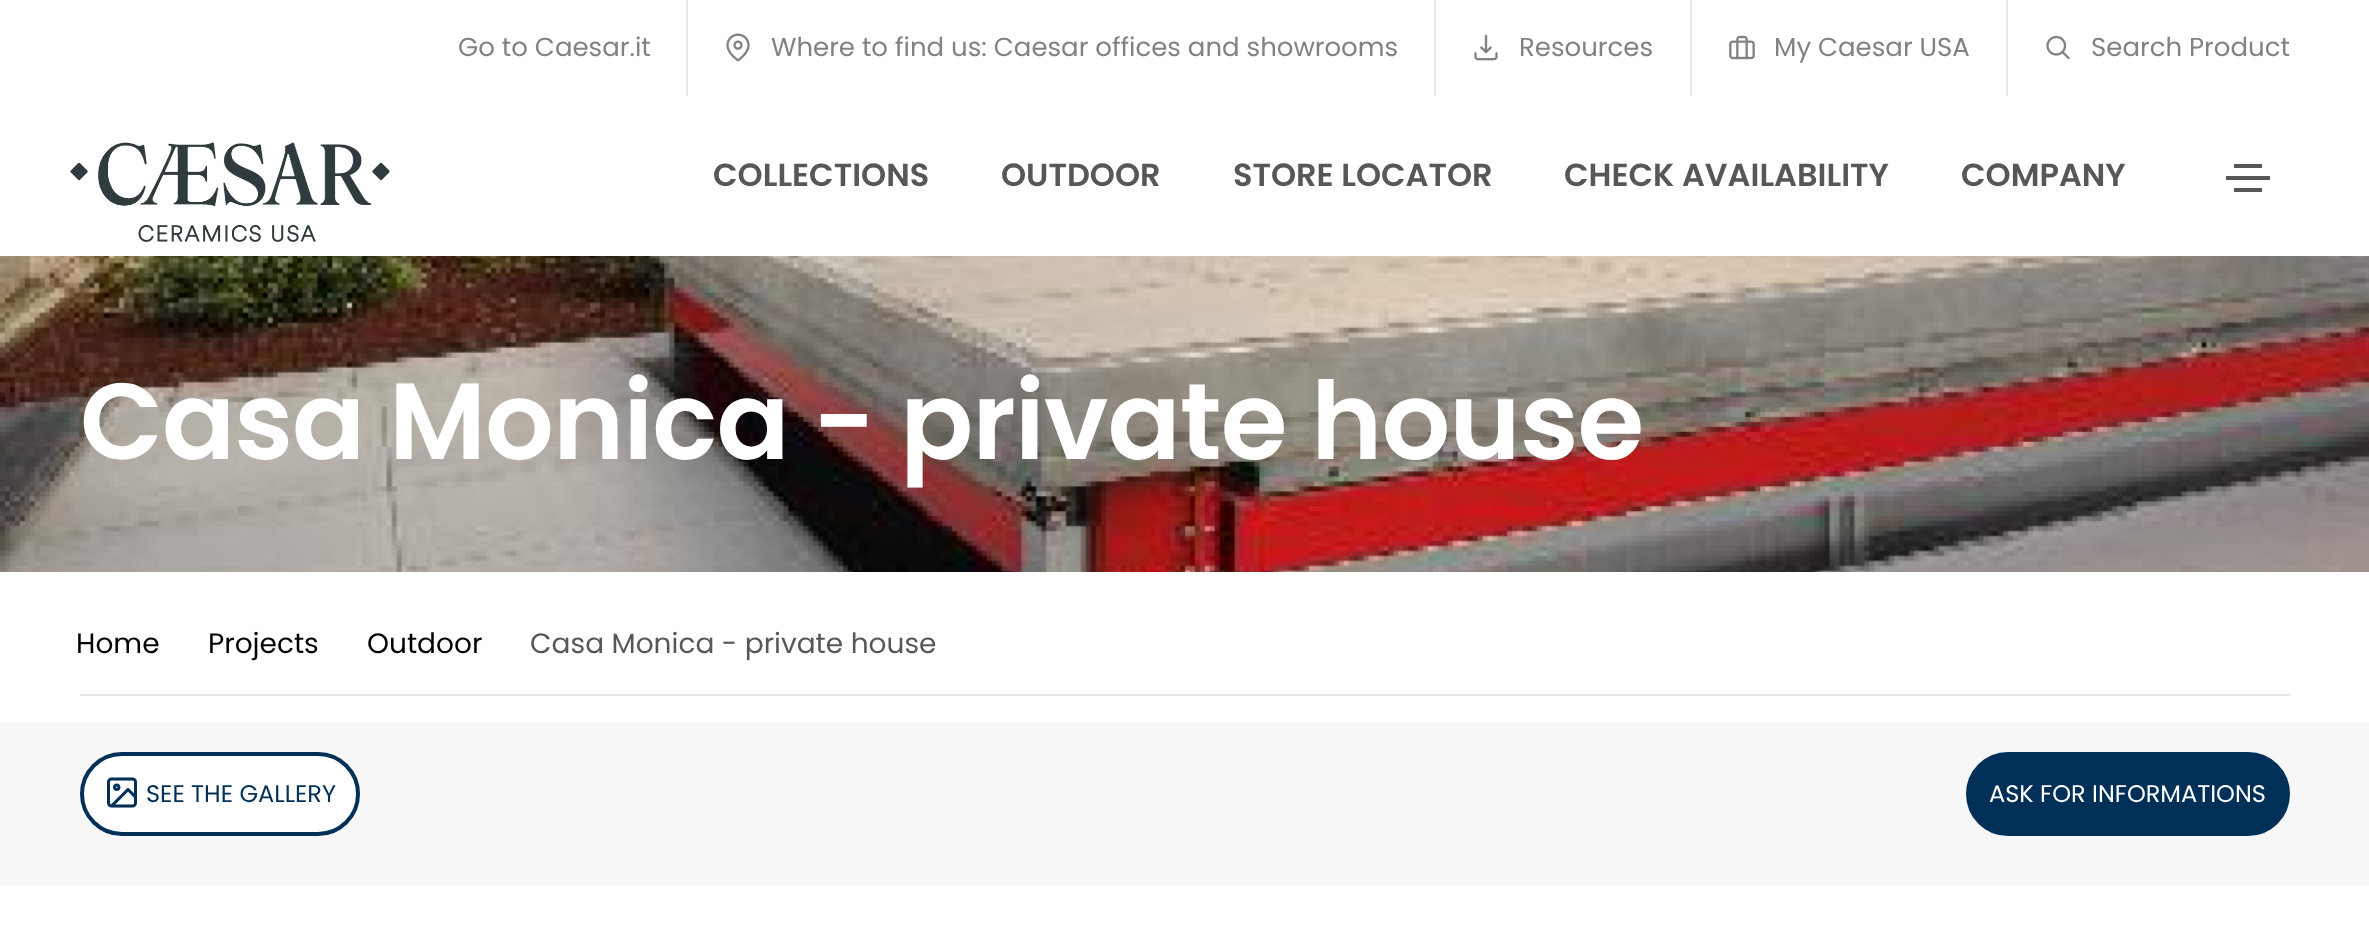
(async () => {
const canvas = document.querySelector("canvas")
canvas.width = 2369
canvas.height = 952
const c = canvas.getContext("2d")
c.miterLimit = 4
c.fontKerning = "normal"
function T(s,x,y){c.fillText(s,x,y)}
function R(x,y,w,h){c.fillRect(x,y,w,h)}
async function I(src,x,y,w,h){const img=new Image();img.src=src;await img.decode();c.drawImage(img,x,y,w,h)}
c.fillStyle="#fff"
R(0,0,2369,952)
c.fillStyle="#e6e6e6"
R(686,0,2,96)
c.font="26px Poppins"
c.fillStyle="#828282"
T("Go to Caesar.it",458,56)
c.fillStyle="#e6e6e6"
R(1434,0,2,96)
await I("1.png",726,33,24,29)
c.fillStyle="#828282"
T("Where to find us: Caesar offices and showrooms",771,56)
c.fillStyle="#e6e6e6"
R(1690,0,2,96)
await I("2.png",1474,34,24,27)
c.fillStyle="#828282"
T("Resources",1519,56)
c.fillStyle="#e6e6e6"
R(2006,0,2,96)
await I("3.png",1729,35,26,25)
c.fillStyle="#828282"
T("My Caesar USA",1774,56)
await I("4.png",2046,35,24,25)
T("Search Product",2091,56)
await I("5.png",70,142,320,100)
c.font="600 32px Poppins"
c.fillStyle="#575756"
T("COLLECTIONS",713,186)
T("OUTDOOR",1001,186)
T("STORE LOCATOR",1233,186)
T("CHECK AVAILABILITY",1564,186)
T("COMPANY",1961,186)
R(2234,164,28,4)
R(2226,176,44,4)
R(2234,188,28,4)
await I("6.png",0,256,2369,316)
c.letterSpacing="-1px"
c.font="600 108px Poppins"
c.fillStyle="#fff"
T("Casa Monica - private house",80,459)
c.letterSpacing="0px"
c.font="28px Poppins"
c.fillStyle="#000"
T("Home",76,653)
T("Projects",208,653)
T("Outdoor",367,653)
c.fillStyle="#575756"
T("Casa Monica - private house",530,653)
c.fillStyle="#e6e6e6"
R(80,694,2210,2)
c.fillStyle="#f7f7f7"
R(0,722,2369,164)
c.fillStyle="#fff"
c.beginPath()
c.roundRect(82,754,276,80,40)
c.fill()
c.strokeStyle="#002f57"
c.lineWidth=4
c.stroke()
await I("7.png",107,777,30,31)
c.font="24px Poppins"
c.fillStyle="#002f57"
T("SEE THE GALLERY",146,802)
c.beginPath()
c.roundRect(1968,754,320,80,40)
c.fill()
c.stroke()
c.fillStyle="#fff"
T("ASK FOR INFORMATIONS",1989,802)
})()
